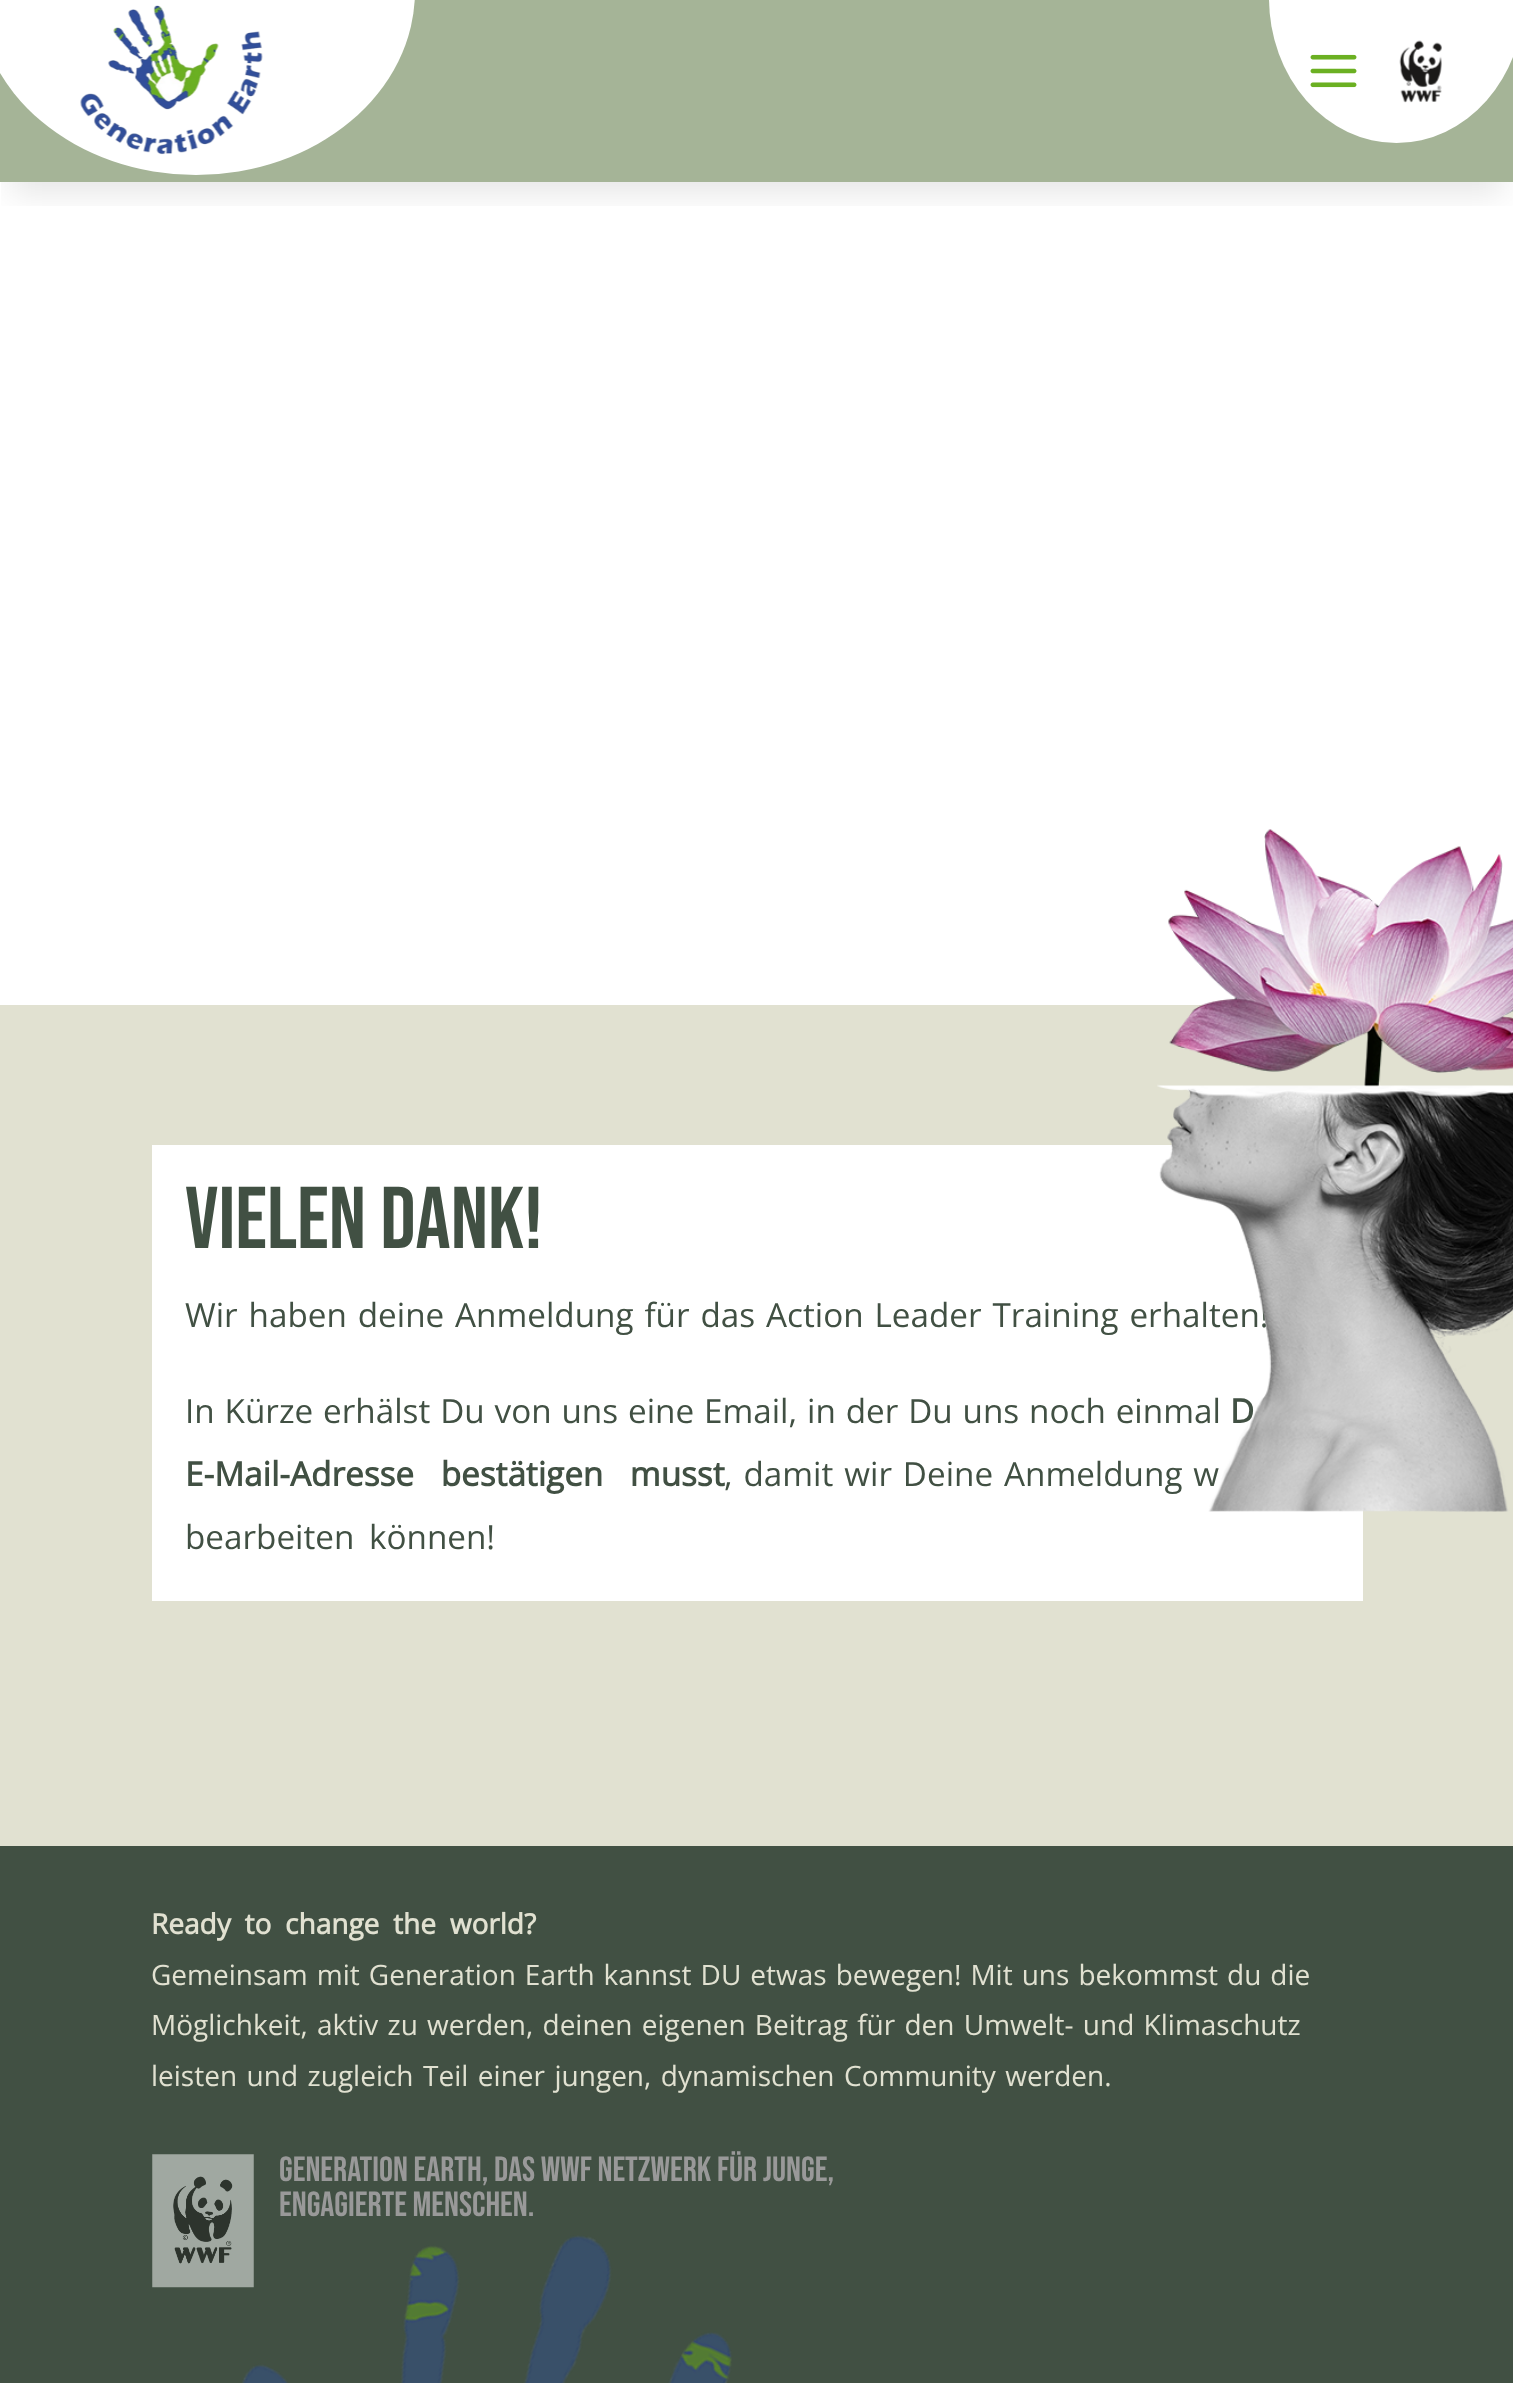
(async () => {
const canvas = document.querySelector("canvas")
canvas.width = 1513
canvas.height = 2383
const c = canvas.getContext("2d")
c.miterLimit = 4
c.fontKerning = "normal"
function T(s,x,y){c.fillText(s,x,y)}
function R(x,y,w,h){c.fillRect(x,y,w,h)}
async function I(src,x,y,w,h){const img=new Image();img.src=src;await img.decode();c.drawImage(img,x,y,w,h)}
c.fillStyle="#a5b497"
R(0,0,1513,2383)
c.fillStyle="#fff"
R(0,182,1513,823)
c.save()
c.beginPath()
c.rect(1,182,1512,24)
c.clip()
c.fillStyle="#0000001a"
c.filter="blur(16px)"
c.beginPath()
c.rect(11,32,1492,161)
c.fill()
c.filter="none"
c.restore()
c.beginPath()
c.ellipse(196,-9,219,184,0,0,7)
c.fill()
await I("1.png",80,5,183,150)
c.beginPath()
c.ellipse(1396.5,-2,127.5,145,0,0,7)
c.fill()
await I("2.png",1399,40,43,63)
await I("3.png",1310,54,47,34)
c.fillStyle="#e1e1d1"
R(0,1005,1513,841)
c.fillStyle="#fff"
R(152,1145,1211,456)
c.font="87.5px Bebas Neue"
c.fillStyle="#415043"
T("Vielen Dank!",185,1248)
c.wordSpacing="2.25px"
c.font="33.25px Open Sans"
T("Wir haben deine Anmeldung für das Action Leader Training erhalten!",185,1327)
c.wordSpacing="1.25px"
T("In Kürze erhälst Du von uns eine Email, in der Du uns noch einmal",185,1423)
c.wordSpacing="0px"
c.font="bold 33.25px Open Sans"
T("D",1230,1423)
c.wordSpacing="18px"
T("E-Mail-Adresse bestätigen musst",185,1486)
c.wordSpacing="2.25px"
c.font="33.25px Open Sans"
T(", damit wir Deine Anmeldung w",724,1486)
c.wordSpacing="6px"
T("bearbeiten können!",185,1549)
await I("4.png",1157,829,356,683)
R(0,1846,1513,537)
c.wordSpacing="6.5px"
c.font="bold 28px Open Sans"
c.fillStyle="#e1e1d1"
T("Ready to change the world?",151,1934)
c.wordSpacing="1.75px"
c.font="28px Open Sans"
T("Gemeinsam mit Generation Earth kannst DU etwas bewegen! Mit uns bekommst du die",151,1985)
c.wordSpacing="2px"
T("Möglichkeit, aktiv zu werden, deinen eigenen Beitrag für den Umwelt- und Klimaschutz",151,2035)
c.wordSpacing="2.25px"
T("leisten und zugleich Teil einer jungen, dynamischen Community werden.",151,2086)
await I("5.png",152,2154,102,134)
c.wordSpacing="0px"
c.font="35px Bebas Neue"
c.fillStyle="#999"
T("Generation Earth, das WWF Netzwerk für junge,",279,2181)
T("engagierte Menschen.",279,2216)
await I("6.png",242,2235,490,148)
})()
